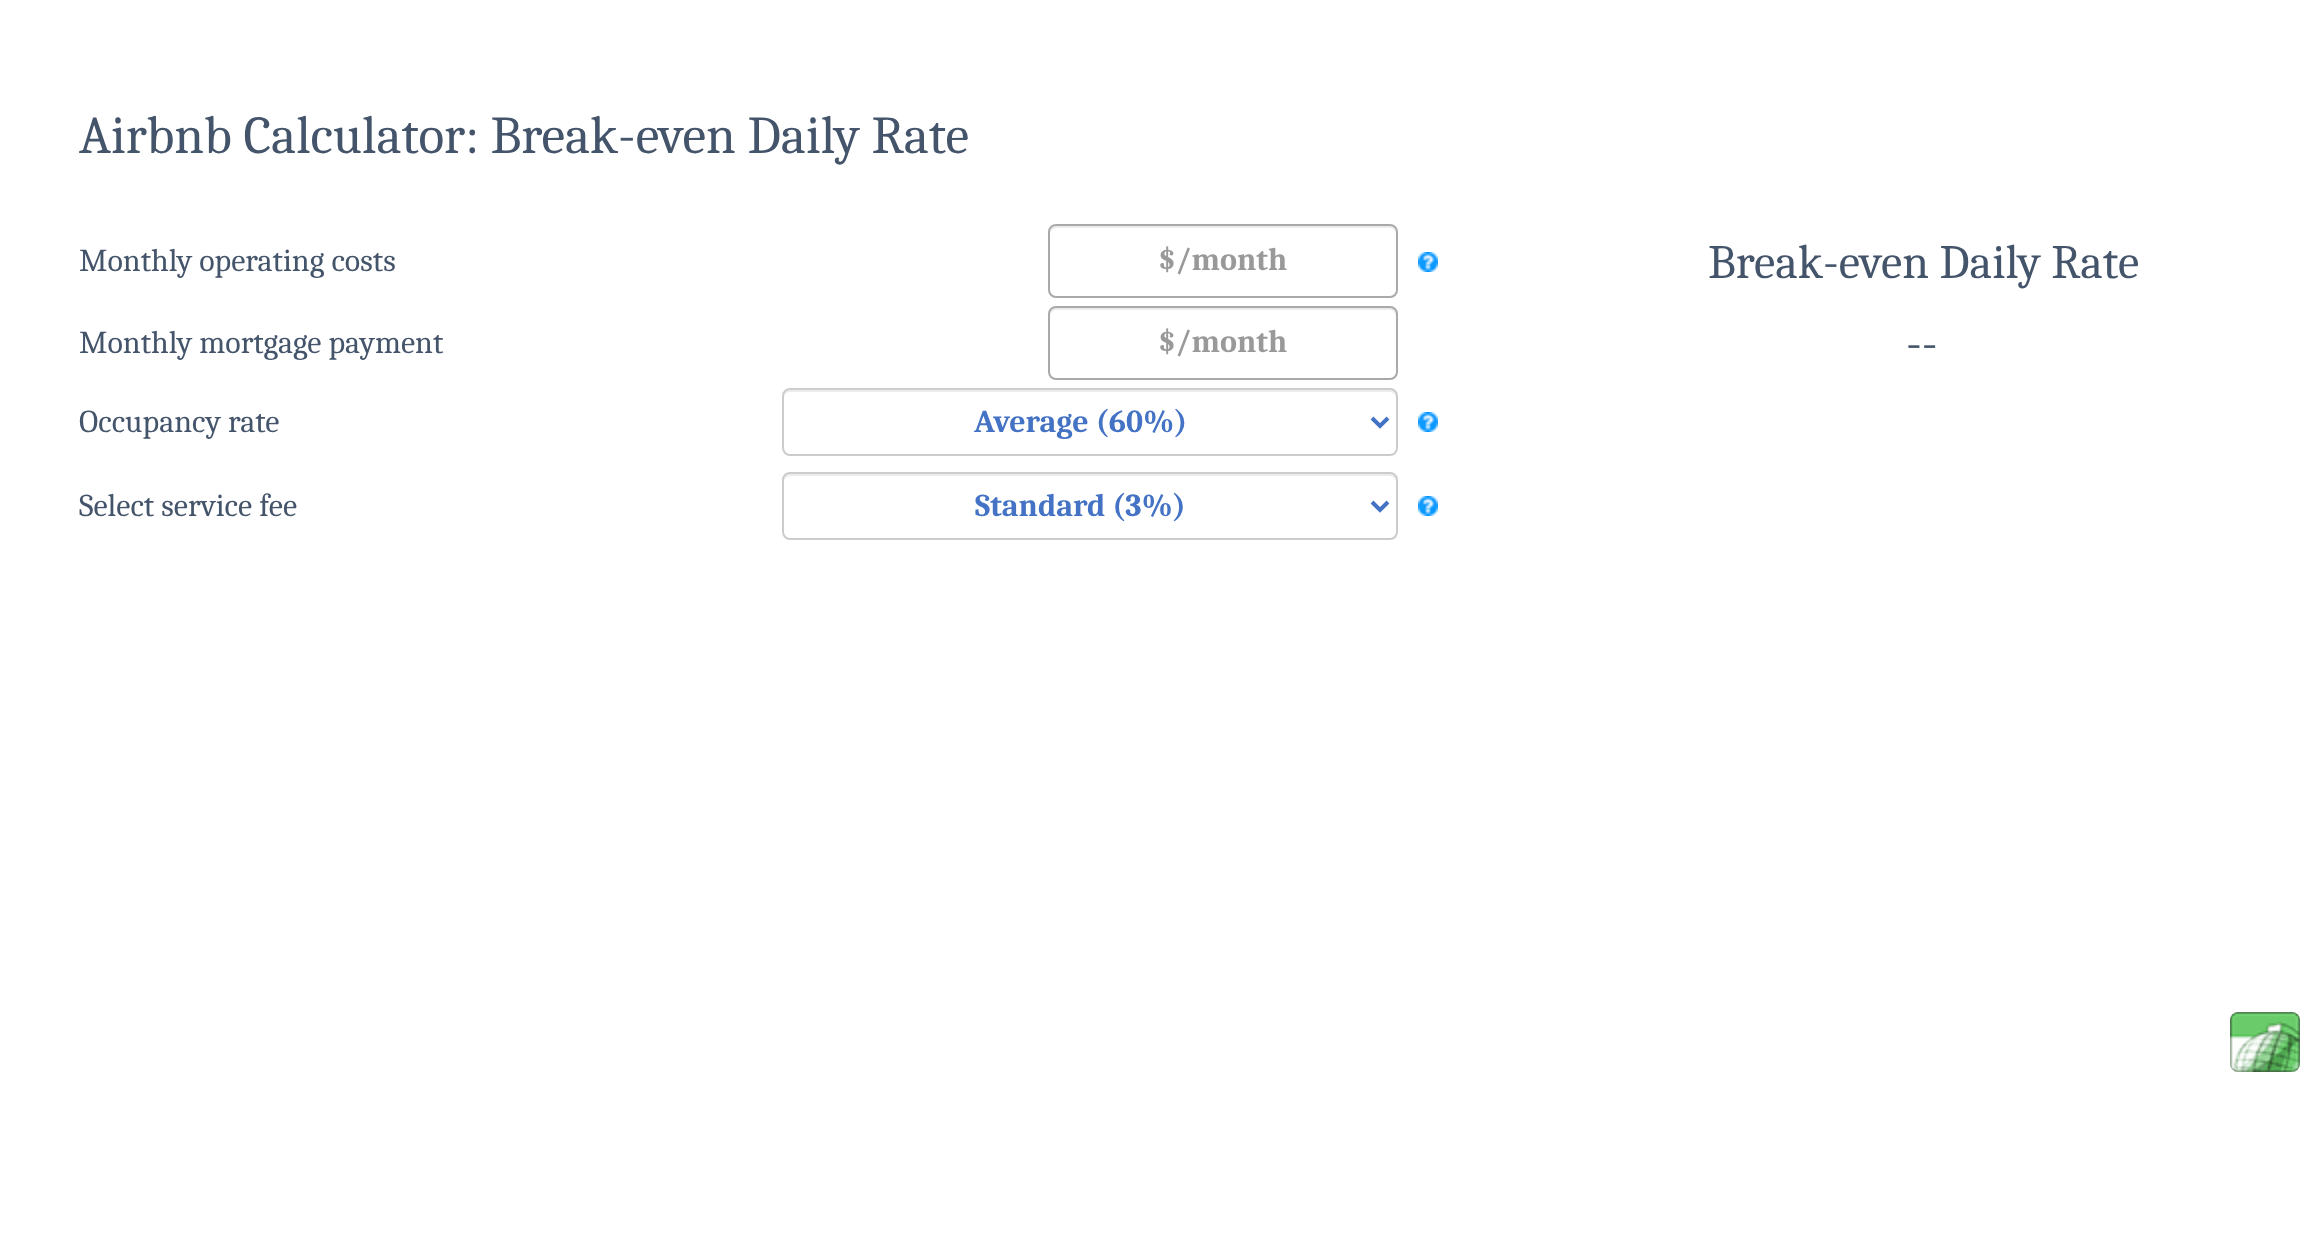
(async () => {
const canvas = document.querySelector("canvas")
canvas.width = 2300
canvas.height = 1244
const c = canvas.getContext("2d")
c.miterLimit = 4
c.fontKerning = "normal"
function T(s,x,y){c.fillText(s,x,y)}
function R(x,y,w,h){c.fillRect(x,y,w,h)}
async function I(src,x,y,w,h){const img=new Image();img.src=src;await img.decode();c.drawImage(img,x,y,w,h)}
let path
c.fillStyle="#fff"
R(0,0,2300,1244)
c.font="53.3px Caladea"
c.fillStyle="#44546a"
T("Airbnb Calculator: Break-even Daily Rate",79,153)
c.font="32px Caladea"
T("Monthly operating costs",79,271)
c.fillStyle="#ececec"
path = new Path2D("M1056 228h334c3 0 6 3 6 6v-2c0-3-3-6-6-6h-334c-3 0-6 3-6 6v2c0-3 3-6 6-6z")
c.fill(path)
c.beginPath()
c.roundRect(1049,225,348,72,7)
c.strokeStyle="#a9a9a9"
c.lineWidth=2
c.stroke()
c.font="bold 32px Caladea"
c.fillStyle="#999"
T("$/month",1158,270)
await I("1.png",1418,252,20,20)
c.font="48px Caladea"
c.fillStyle="#44546a"
T("Break-even Daily Rate",1708,278)
c.font="32px Caladea"
T("Monthly mortgage payment",79,353)
c.fillStyle="#ececec"
path = new Path2D("M1056 310h334c3 0 6 3 6 6v-2c0-3-3-6-6-6h-334c-3 0-6 3-6 6v2c0-3 3-6 6-6z")
c.fill(path)
c.beginPath()
c.roundRect(1049,307,348,72,7)
c.stroke()
c.font="bold 32px Caladea"
c.fillStyle="#999"
T("$/month",1158,352)
c.font="48px Caladea"
c.fillStyle="#44546a"
T("--",1906,359)
c.font="32px Caladea"
T("Occupancy rate",79,432)
c.fillStyle="#ececec"
path = new Path2D("M790 392h600c3 0 6 3 6 6v-2c0-3-3-6-6-6h-600c-3 0-6 3-6 6v2c0-3 3-6 6-6z")
c.fill(path)
c.beginPath()
c.roundRect(783,389,614,66,7)
c.strokeStyle="#ccc"
c.stroke()
path = new Path2D("M1372 418l8 8l8-8")
c.strokeStyle="#4472c4"
c.lineWidth=4
c.stroke(path)
c.font="bold 32px Caladea"
c.fillStyle="#4472c4"
T("Average (60%)",974,432)
await I("2.png",1418,412,20,20)
c.font="32px Caladea"
c.fillStyle="#44546a"
T("Select service fee",79,516)
c.fillStyle="#ececec"
path = new Path2D("M790 476h600c3 0 6 3 6 6v-2c0-3-3-6-6-6h-600c-3 0-6 3-6 6v2c0-3 3-6 6-6z")
c.fill(path)
c.beginPath()
c.roundRect(783,473,614,66,7)
c.strokeStyle="#ccc"
c.lineWidth=2
c.stroke()
path = new Path2D("M1372 502l8 8l8-8")
c.strokeStyle="#4472c4"
c.lineWidth=4
c.stroke(path)
c.font="bold 32px Caladea"
c.fillStyle="#4472c4"
T("Standard (3%)",975,516)
await I("2.png",1418,496,20,20)
await I("3.png",2230,1012,70,60)
})()
